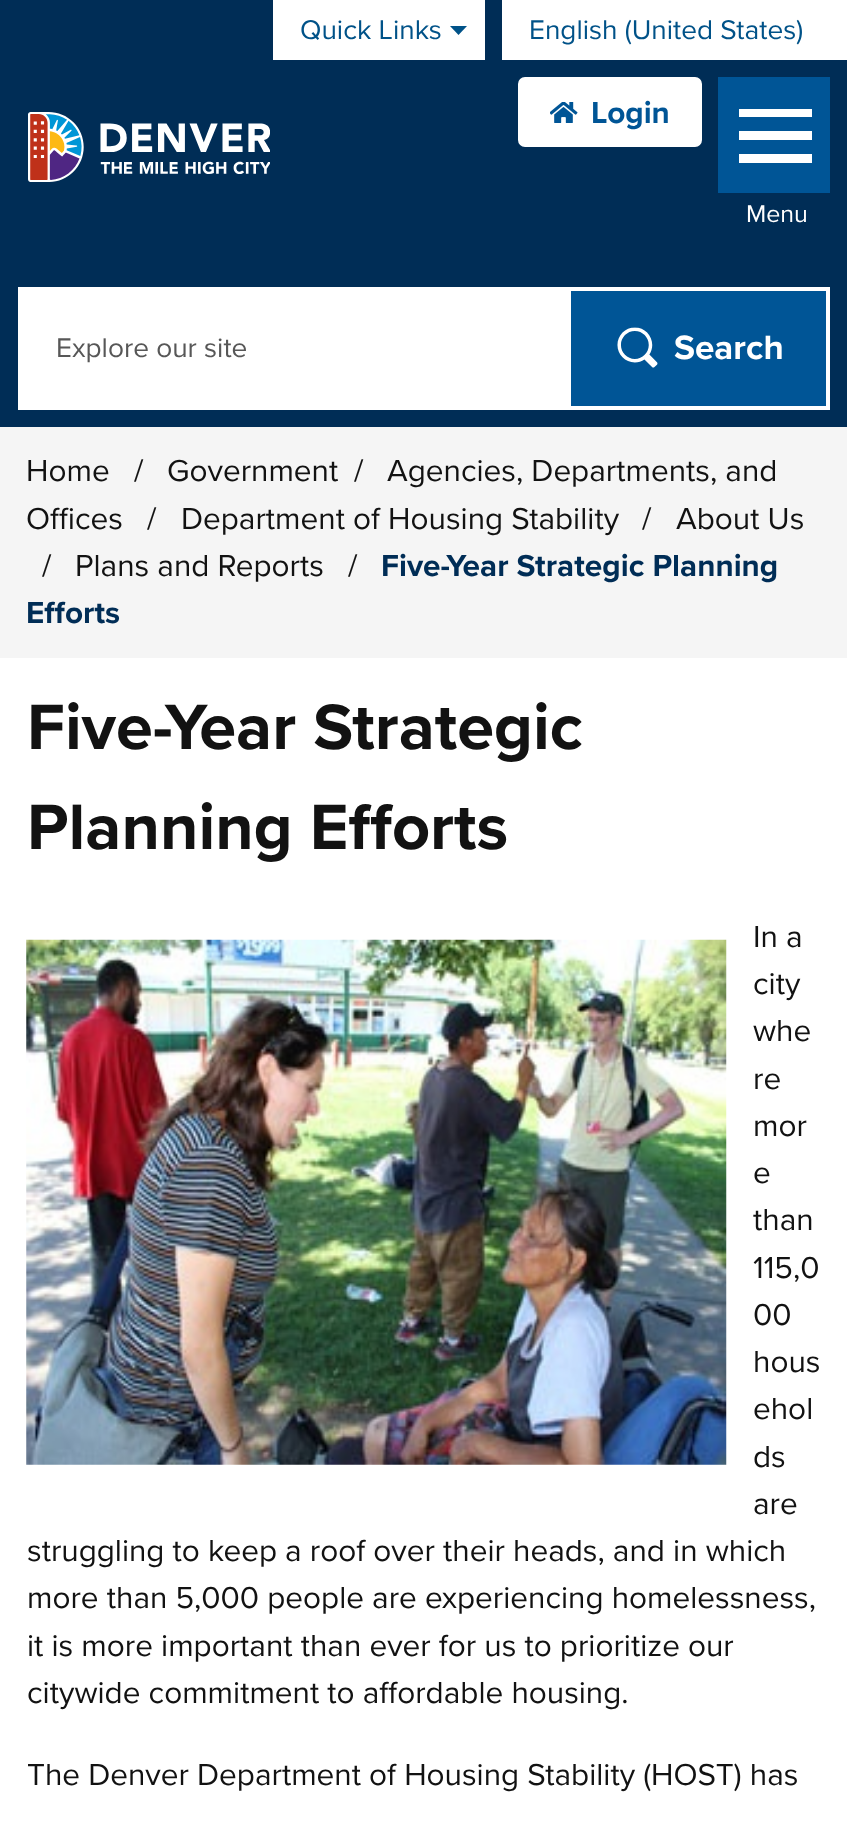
(async () => {
const canvas = document.querySelector("canvas")
canvas.width = 847
canvas.height = 1822
const c = canvas.getContext("2d")
c.miterLimit = 4
c.fontKerning = "normal"
function T(s,x,y){c.fillText(s,x,y)}
function R(x,y,w,h){c.fillRect(x,y,w,h)}
async function I(src,x,y,w,h){const img=new Image();img.src=src;await img.decode();c.drawImage(img,x,y,w,h)}
let path
c.fillStyle="#002d56"
R(0,0,847,1822)
c.fillStyle="#fff"
R(273,0,212,60)
c.font="28px Proxima Nova"
c.fillStyle="#005288"
T("Quick Links",300,39)
path = new Path2D("M450 26h17l-8.5 9z")
c.fill(path)
c.fillStyle="#fff"
R(502,0,345,60)
c.fillStyle="#005288"
T("English (United States)",529,39)
await I("1.png",28,112,242,70)
c.fillStyle="#fff"
c.beginPath()
c.roundRect(520,79,180,66,5)
c.fill()
c.strokeStyle="#fff"
c.lineWidth=4
c.stroke()
await I("2.png",550,102,28,21)
c.font="bold 31.5px Proxima Nova"
c.fillStyle="#005596"
T("Login",591,123)
R(718,77,112,116)
c.fillStyle="#fff"
R(739,131,73,9)
R(739,109,73,8)
R(739,154,73,9)
c.font="25px Proxima Nova"
T("Menu",746,222)
R(18,287,549,123)
c.font="28px Proxima Nova"
c.fillStyle="#575757"
T("Explore our site",56,357)
c.fillStyle="#005596"
R(571,291,255,115)
await I("3.png",617,327,41,41)
c.strokeRect(569,289,259,119)
c.font="bold 35px Proxima Nova"
c.fillStyle="#fff"
T("Search",674,359)
c.fillStyle="#f5f5f5"
R(0,427,847,231)
c.font="31.5px Proxima Nova"
c.fillStyle="#121212"
T("Home",26,481)
T("/",134,481)
T("Government",167,481)
T("/",354,481)
T("Agencies, Departments, and",387,481)
T("Offices",26,529)
T("/",147,529)
T("Department of Housing Stability",181,529)
T("/",642,529)
T("About Us",676,529)
T("/",42,576)
T("Plans and Reports",75,576)
T("/",348,576)
c.font="bold 31.5px Proxima Nova"
c.fillStyle="#002d56"
T("Five-Year Strategic Planning",381,576)
T("Efforts",26,623)
c.fillStyle="#fff"
R(0,658,847,1164)
c.font="bold 66.5px Proxima Nova"
c.fillStyle="#121212"
T("Five-Year Strategic",27,749)
T("Planning Efforts",27,849)
c.font="31.5px Proxima Nova"
T("In a",753,947)
T("city",753,994)
T("whe",753,1041)
T("re",753,1089)
T("mor",753,1136)
T("e",753,1183)
T("than",753,1230)
T("115,0",753,1278)
T("00",753,1325)
T("hous",753,1372)
T("ehol",753,1419)
T("ds",753,1467)
T("are",753,1514)
T("struggling to keep a roof over their heads, and in which",27,1561)
T("more than 5,000 people are experiencing homelessness,",27,1608)
T("it is more important than ever for us to prioritize our",27,1656)
T("citywide commitment to affordable housing.",27,1703)
await I("4.png",26,939,701,526)
T("The Denver Department of Housing Stability (HOST) has",27,1785)
})()
